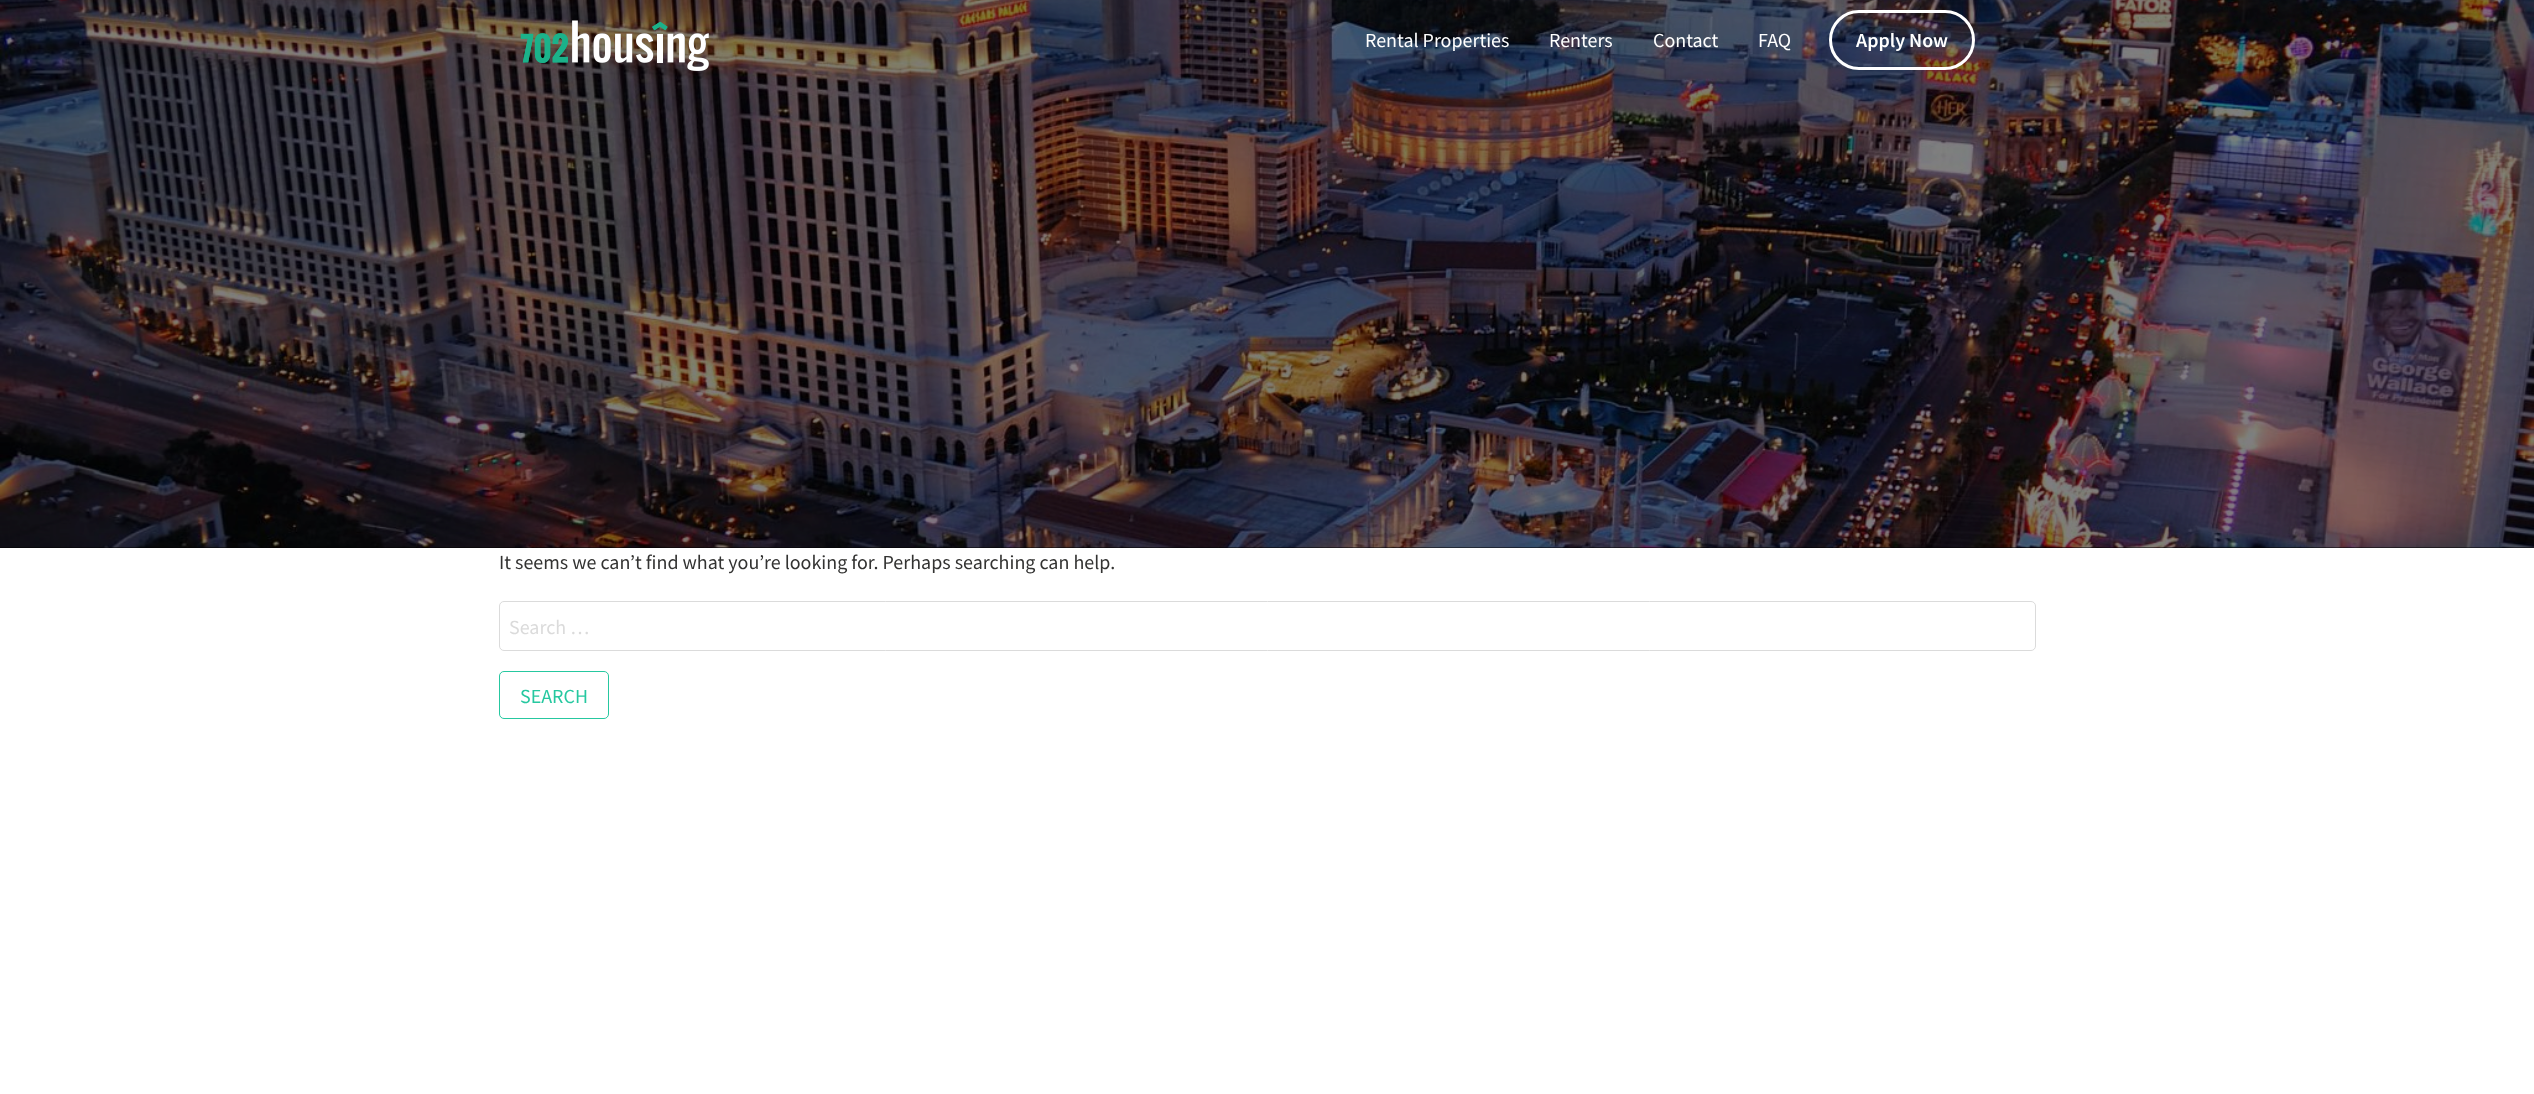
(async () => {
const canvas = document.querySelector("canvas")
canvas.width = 2534
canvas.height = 1094
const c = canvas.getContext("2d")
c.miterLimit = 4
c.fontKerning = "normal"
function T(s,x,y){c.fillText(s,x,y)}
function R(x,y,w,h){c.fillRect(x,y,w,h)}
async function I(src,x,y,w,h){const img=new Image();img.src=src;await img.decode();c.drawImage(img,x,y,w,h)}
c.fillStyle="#fff"
R(0,0,2534,1094)
c.fillStyle="#000"
R(0,547,2534,1)
await I("3.png",0,0,2534,548)
await I("1.png",520,20,189,51)
await I("2.png",520,20,189,51)
c.font="20px Source Sans Pro"
c.fillStyle="#fff"
T("Rental Properties",1365,47)
T("Renters",1549,47)
T("Contact",1653,47)
T("FAQ",1758,47)
c.beginPath()
c.roundRect(1830.5,11.5,143,57,28.5)
c.strokeStyle="#fff"
c.lineWidth=3
c.stroke()
c.font="600 20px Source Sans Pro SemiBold"
T("Apply Now",1856,47)
c.font="20px Source Sans Pro"
c.fillStyle="#333332"
T("It seems we can’t find what you’re looking for. Perhaps searching can help.",499,569)
c.beginPath()
c.roundRect(499.5,601.5,1536,49,4.5)
c.strokeStyle="#dbdbdb"
c.lineWidth=1
c.stroke()
c.fillStyle="#dbdbdb"
T("Search …",509,634)
c.beginPath()
c.roundRect(499.5,671.5,109,47,4.5)
c.strokeStyle="#26c8a0"
c.stroke()
c.fillStyle="#26c8a0"
T("SEARCH",520,703)
})()
